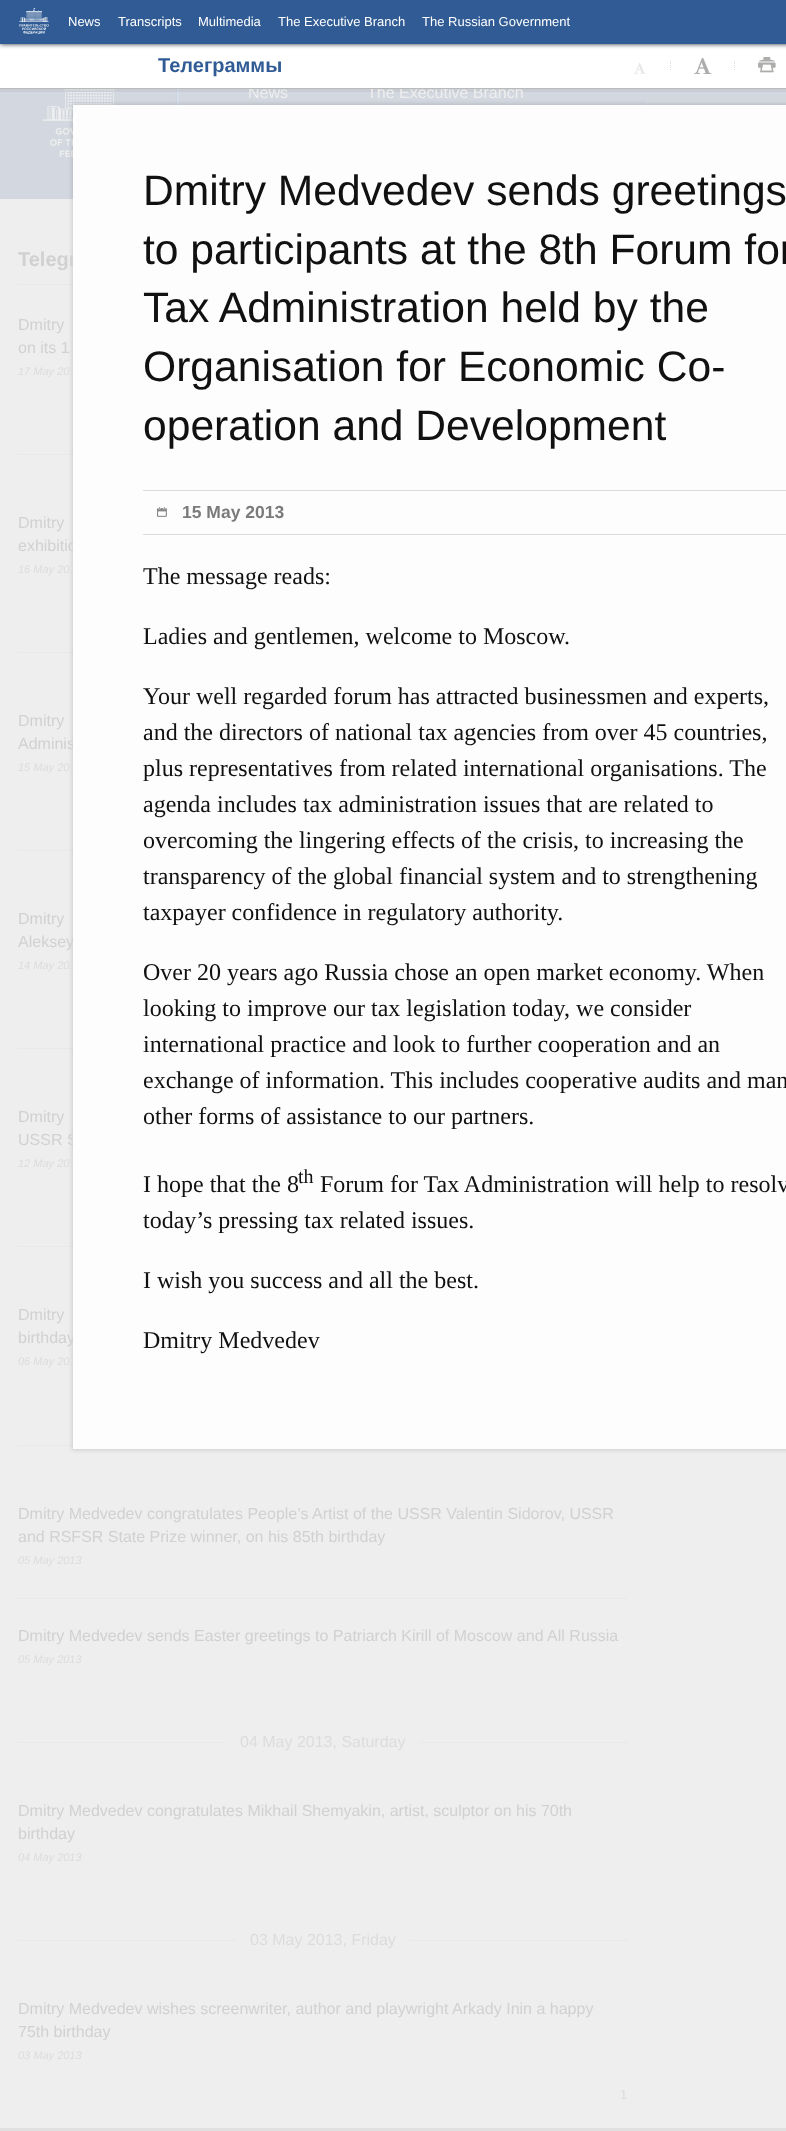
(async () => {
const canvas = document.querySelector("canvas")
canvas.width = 786
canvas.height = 2131
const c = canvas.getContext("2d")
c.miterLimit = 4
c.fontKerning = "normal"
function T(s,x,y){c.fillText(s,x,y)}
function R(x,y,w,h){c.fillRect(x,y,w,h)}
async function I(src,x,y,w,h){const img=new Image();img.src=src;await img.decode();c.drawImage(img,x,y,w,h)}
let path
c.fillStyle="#eee"
R(0,0,786,2131)
c.fillStyle="#d3d8e0"
R(0,89,786,110)
await I("6.png",42,89,73,68)
await I("7.png",175,89,4,16)
c.fillStyle="#32323212"
R(0,89,786,3)
c.font="16px Liberation Sans"
c.fillStyle="#eee"
T("News",248,98)
T("The Executive Branch",367,98)
c.fillStyle="#fff"
R(0,44,786,44)
c.fillStyle="#1c2939"
c.filter="blur(2.5px)"
c.beginPath()
c.rect(0,-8,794,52)
c.fill()
c.filter="none"
c.fillStyle="#305b94"
R(0,0,786,44)
await I("1.png",19,8,30,26)
c.font="13px Liberation Sans"
c.fillStyle="#fff"
T("News",68,26)
T("Transcripts",118,26)
T("Multimedia",198,26)
T("The Executive Branch",278,26)
T("The Russian Government",422,26)
c.fillStyle="#bababa"
R(0,88,786,1)
c.font="bold 20px Liberation Sans"
c.fillStyle="#305b94"
T("Телеграммы",158,72)
path = new Path2D("M670.5 61v9")
c.strokeStyle="#dbdbdb"
c.setLineDash([1,1])
c.stroke(path)
await I("2.png",634,63,12,11)
path = new Path2D("M734.5 61v9")
c.stroke(path)
await I("3.png",694,58,18,16)
await I("4.png",758,57,18,16)
c.strokeStyle="#d8dce3"
c.setLineDash([])
c.strokeRect(647.5,101.5,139,35)
c.fillStyle="#e9e9e9"
R(18,284,55,1)
path = new Path2D("M18 454.5h609")
c.strokeStyle="#e3e3e3"
c.setLineDash([1,1])
c.stroke(path)
path = new Path2D("M18 652.5h609")
c.stroke(path)
path = new Path2D("M18 850.5h609")
c.stroke(path)
path = new Path2D("M18 1048.5h609")
c.stroke(path)
path = new Path2D("M18 1246.5h609")
c.stroke(path)
path = new Path2D("M18 1445.5h609")
c.stroke(path)
c.fillStyle="#00000024"
c.filter="blur(2px)"
c.beginPath()
c.rect(72,104,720,1346)
c.fill()
c.filter="none"
c.fillStyle="#d1d1d1"
T("Telegr",18,266)
c.font="italic 11px Liberation Sans"
c.fillStyle="#dcdcdc"
T("17 May 201",18,375)
c.font="16px Liberation Sans"
c.fillStyle="#d1d1d1"
T("exhibitio",18,551)
c.font="italic 11px Liberation Sans"
c.fillStyle="#dcdcdc"
T("16 May 201",18,573)
c.font="16px Liberation Sans"
c.fillStyle="#d1d1d1"
T("Adminis",18,749)
c.font="italic 11px Liberation Sans"
c.fillStyle="#dcdcdc"
T("15 May 201",18,771)
c.font="16px Liberation Sans"
c.fillStyle="#d1d1d1"
T("Aleksey",18,947)
c.font="italic 11px Liberation Sans"
c.fillStyle="#dcdcdc"
T("14 May 201",18,969)
c.font="16px Liberation Sans"
c.fillStyle="#d1d1d1"
T("USSR S",18,1145)
c.font="italic 11px Liberation Sans"
c.fillStyle="#dcdcdc"
T("12 May 201",18,1167)
c.font="16px Liberation Sans"
c.fillStyle="#d1d1d1"
T("birthday",18,1343)
c.font="italic 11px Liberation Sans"
c.fillStyle="#dcdcdc"
T("06 May 201",18,1365)
c.fillStyle="#fdfdfd"
R(73,105,713,1344)
c.font="42.6px Liberation Sans"
c.fillStyle="#111"
T("Dmitry Medvedev sends greetings",143,205)
T("to participants at the 8th Forum for",143,264)
T("Tax Administration held by the",143,322)
T("Organisation for Economic Co-",143,381)
T("operation and Development",143,440)
await I("5.png",157,507,10,10)
c.fillStyle="#dcdcdc"
R(143,490,643,1)
R(143,534,643,1)
c.font="bold 17.5px Liberation Sans"
c.fillStyle="#7b7b7b"
T("15 May 2013",182,518)
c.save()
c.beginPath()
c.rect(143,535,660,848)
c.clip()
c.font="24px Liberation Serif"
c.fillStyle="#111"
T("The message reads:",143,584)
c.restore()
c.font="24px Liberation Serif"
c.fillStyle="#111"
T("Ladies and gentlemen, welcome to Moscow.",143,644)
T("Your well regarded forum has attracted businessmen and experts,",143,704)
T("and the directors of national tax agencies from over 45 countries,",143,740)
T("plus representatives from related international organisations. The",143,776)
T("agenda includes tax administration issues that are related to",143,812)
T("overcoming the lingering effects of the crisis, to increasing the",143,848)
T("transparency of the global financial system and to strengthening",143,884)
T("taxpayer confidence in regulatory authority.",143,920)
T("Over 20 years ago Russia chose an open market economy. When",143,980)
T("looking to improve our tax legislation today, we consider",143,1016)
T("international practice and look to further cooperation and an",143,1052)
T("exchange of information. This includes cooperative audits and man",143,1088)
T("other forms of assistance to our partners.",143,1124)
T("I hope that the 8",143,1192)
c.font="20px Liberation Serif"
T("th",298,1183)
c.font="24px Liberation Serif"
T("Forum for Tax Administration will help to resolv",320,1192)
T("today’s pressing tax related issues.",143,1228)
T("I wish you success and all the best.",143,1288)
T("Dmitry Medvedev",143,1348)
c.fillStyle="#e0e0e0"
R(0,2128,786,3)
c.font="16px Liberation Sans"
c.fillStyle="#d1d1d1"
T("Dmitry",18,330)
T("on its 1",18,353)
T("Dmitry",18,528)
T("Dmitry",18,726)
T("Dmitry",18,924)
T("Dmitry",18,1122)
T("Dmitry",18,1320)
T("Dmitry Medvedev congratulates People’s Artist of the USSR Valentin Sidorov, USSR",18,1519)
T("and RSFSR State Prize winner, on his 85th birthday",18,1542)
c.font="italic 11px Liberation Sans"
c.fillStyle="#dcdcdc"
T("05 May 2013",18,1564)
c.fillStyle="#e9e9e9"
R(18,1598,609,1)
c.font="16px Liberation Sans"
c.fillStyle="#d1d1d1"
T("Dmitry Medvedev sends Easter greetings to Patriarch Kirill of Moscow and All Russia",18,1641)
c.font="italic 11px Liberation Sans"
c.fillStyle="#dcdcdc"
T("05 May 2013",18,1663)
path = new Path2D("M18 1742.5h609")
c.stroke(path)
c.fillStyle="#eee"
R(226,1742,193,1)
c.font="16px Liberation Sans"
c.fillStyle="#dcdcdc"
T("04 May 2013, Saturday",240,1747)
c.fillStyle="#d1d1d1"
T("Dmitry Medvedev congratulates Mikhail Shemyakin, artist, sculptor on his 70th",18,1816)
T("birthday",18,1839)
c.font="italic 11px Liberation Sans"
c.fillStyle="#dcdcdc"
T("04 May 2013",18,1861)
path = new Path2D("M18 1940.5h609")
c.stroke(path)
c.fillStyle="#eee"
R(236,1940,173,1)
c.font="16px Liberation Sans"
c.fillStyle="#dcdcdc"
T("03 May 2013, Friday",250,1945)
c.fillStyle="#d1d1d1"
T("Dmitry Medvedev wishes screenwriter, author and playwright Arkady Inin a happy",18,2014)
T("75th birthday",18,2037)
c.font="italic 11px Liberation Sans"
c.fillStyle="#dcdcdc"
T("03 May 2013",18,2059)
c.font="13px Liberation Sans"
T("1",620,2099)
})()
